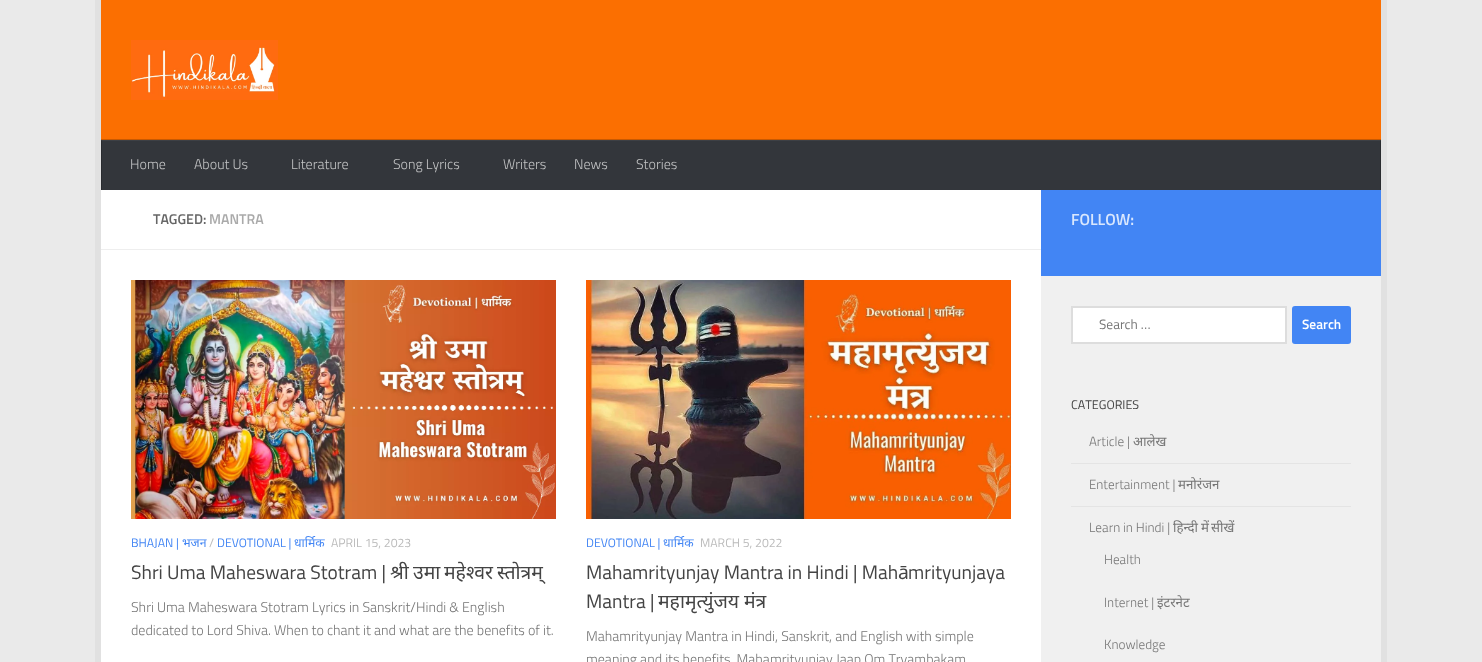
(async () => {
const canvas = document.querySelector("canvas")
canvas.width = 1482
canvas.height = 662
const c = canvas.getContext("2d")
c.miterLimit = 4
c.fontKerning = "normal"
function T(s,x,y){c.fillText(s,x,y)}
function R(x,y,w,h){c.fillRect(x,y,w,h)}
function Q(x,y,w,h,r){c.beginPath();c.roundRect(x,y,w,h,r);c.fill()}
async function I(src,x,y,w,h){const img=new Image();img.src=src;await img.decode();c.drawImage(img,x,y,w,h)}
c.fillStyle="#eaeaea"
R(0,0,1482,662)
c.fillStyle="#e1e1e1"
R(95,0,6,662)
R(1381,0,6,662)
c.fillStyle="#fb6f01"
R(101,0,1280,139)
await I("1.png",131,40,147,60)
c.fillStyle="#c95901"
R(101,139,1280,1)
c.fillStyle="#33363b"
R(102,141,1278,49)
c.fillStyle="#3d4045"
R(101,140,1280,1)
c.fillStyle="#292b2f"
R(1380,140,1,50)
c.fillStyle="#343639"
R(1380,140,1,1)
c.fillStyle="#292b2f"
R(101,140,1,50)
c.fillStyle="#343639"
R(101,140,1,1)
c.font="300 14.1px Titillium"
c.fillStyle="#c2c3c4"
T("Home",130,169)
T("About Us",194,169)
T("Literature",291,169)
T("Song Lyrics",393,169)
T("Writers",503,169)
T("News",574,169)
T("Stories",636,169)
c.fillStyle="#fff"
R(101,190,940,472)
c.fillStyle="#eee"
R(101,249,940,1)
c.font="600 14.1px Titillium"
c.fillStyle="#666"
T("TAGGED:",153,224)
c.fillStyle="#aaa"
T("MANTRA",209,224)
await I("2.png",131,280,425,239)
c.font="12.25px Titillium"
c.fillStyle="#4285f4"
T("BHAJAN |",131,547)
c.font="12.25px Noto Sans"
T("भजन",182,547)
c.font="12.25px Titillium"
c.fillStyle="#bbb"
T("/",209,547)
c.fillStyle="#4285f4"
T("DEVOTIONAL |",217,547)
c.font="12.25px Noto Sans"
T("धार्मिक",294,547)
c.font="12.25px Titillium"
c.fillStyle="#bbb"
T("APRIL 15, 2023",331,547)
c.font="19.4px Titillium"
c.fillStyle="#444"
T("Shri Uma Maheswara Stotram |",131,579)
c.font="19.4px Noto Sans"
T("श्री",390,579)
T("उमा",413,579)
T("महेश्वर",444,579)
T("स्तोत्रम्",497,579)
c.font="300 14.1px Titillium"
c.fillStyle="#767676"
T("Shri Uma Maheswara Stotram Lyrics in Sanskrit/Hindi & English",131,612)
T("dedicated to Lord Shiva. When to chant it and what are the benefits of it.",131,635)
await I("3.png",586,280,425,239)
c.font="12.25px Titillium"
c.fillStyle="#4285f4"
T("DEVOTIONAL |",586,547)
c.font="12.25px Noto Sans"
T("धार्मिक",663,547)
c.font="12.25px Titillium"
c.fillStyle="#bbb"
T("MARCH 5, 2022",700,547)
c.font="19.4px Titillium"
c.fillStyle="#444"
T("Mahamrityunjay Mantra in Hindi | Mah",586,579)
c.font="19.4px Noto Sans"
T("ā",898,579)
c.font="19.4px Titillium"
T("mrityunjaya",908,579)
T("Mantra |",586,608)
c.font="19.4px Noto Sans"
T("महामृत्युंजय",658,608)
T("मंत्र",744,608)
c.font="300 14.1px Titillium"
c.fillStyle="#767676"
T("Mahamrityunjay Mantra in Hindi, Sanskrit, and English with simple",586,641)
T("meaning and its benefits. Mahamrityunjay Jaap Om Tryambakam",586,664)
c.fillStyle="#4285f4"
R(1041,190,340,86)
c.font="600 16px Titillium"
c.fillStyle="#d9e7fd"
T("FOLLOW:",1071,225)
c.fillStyle="#f0f0f0"
R(1041,276,340,386)
c.fillStyle="#fff"
c.beginPath()
c.rect(1072,307,214,36)
c.fill()
c.strokeStyle="#ddd"
c.lineWidth=2
c.stroke()
c.font="13.5px Titillium"
c.fillStyle="#767676"
T("Search …",1099,329)
c.fillStyle="#4285f4"
Q(1292,306,59,38,3)
c.font="600 13.5px Titillium"
c.fillStyle="#fff"
T("Search",1302,329)
c.font="12.5px Titillium"
c.fillStyle="#444"
T("CATEGORIES",1071,409)
c.fillStyle="#e4e4e4"
R(1071,463,280,1)
c.font="300 13.25px Titillium"
c.fillStyle="#767676"
T("Article |",1089,446)
c.font="13.25px Noto Sans"
T("आलेख",1133,446)
c.fillStyle="#e4e4e4"
R(1071,506,280,1)
c.font="300 13.25px Titillium"
c.fillStyle="#767676"
T("Entertainment |",1089,489)
c.font="13.25px Noto Sans"
T("मनोरंजन",1178,489)
c.font="300 13.25px Titillium"
T("Learn in Hindi |",1089,532)
c.font="13.25px Noto Sans"
T("हिन्दी",1173,532)
T("में",1201,532)
T("सीखें",1211,532)
c.font="300 13.25px Titillium"
T("Health",1104,564)
T("Internet |",1104,607)
c.font="13.25px Noto Sans"
T("इंटरनेट",1157,607)
c.font="300 13.25px Titillium"
T("Knowledge",1104,649)
})()
